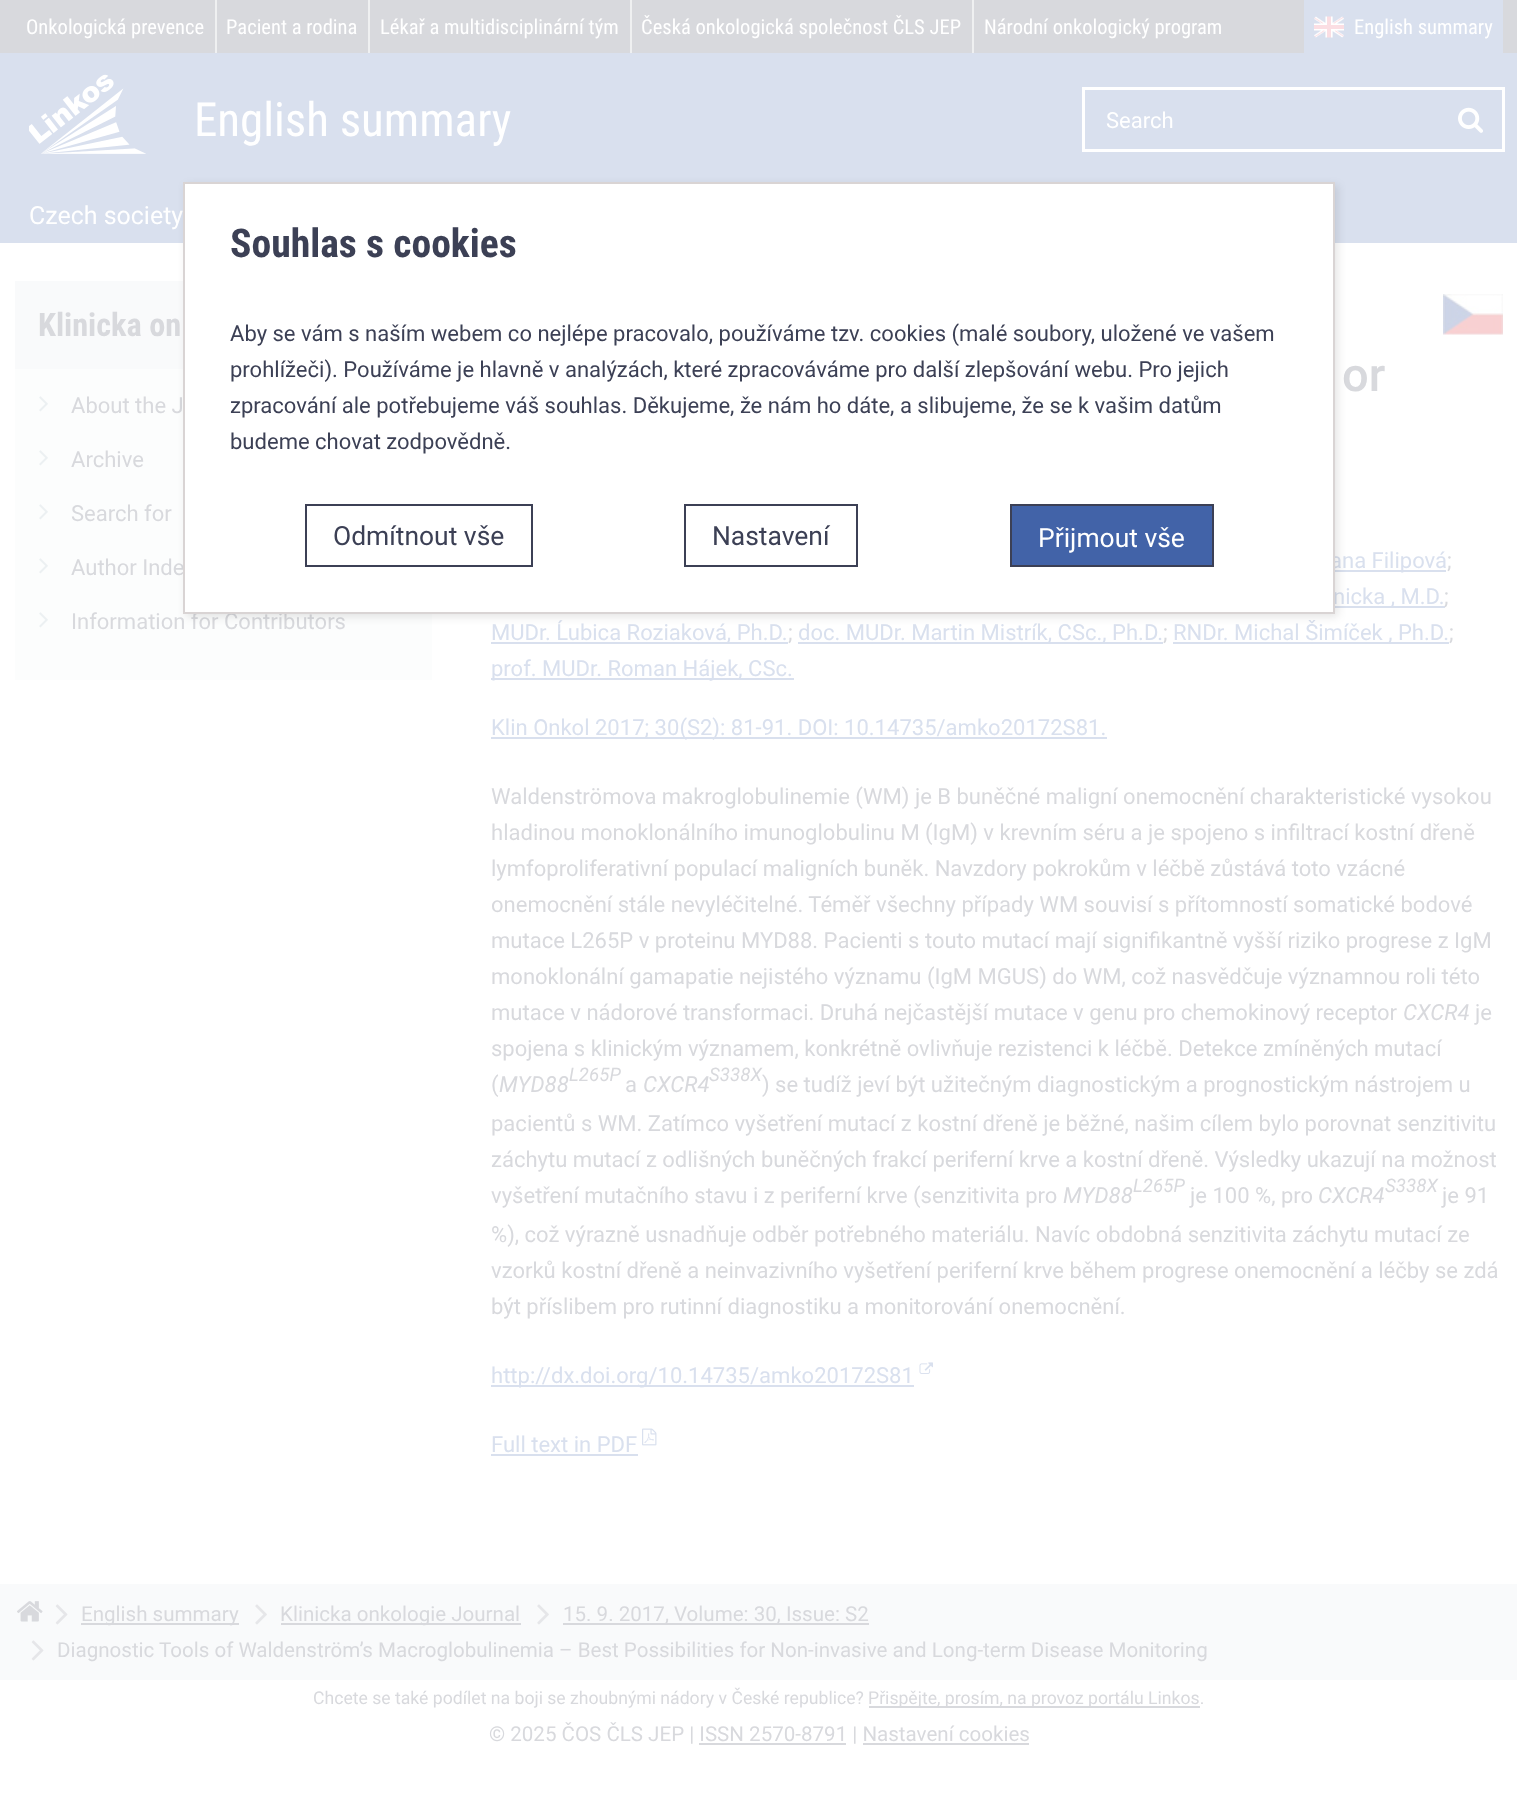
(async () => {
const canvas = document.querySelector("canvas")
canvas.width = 1517
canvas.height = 1809
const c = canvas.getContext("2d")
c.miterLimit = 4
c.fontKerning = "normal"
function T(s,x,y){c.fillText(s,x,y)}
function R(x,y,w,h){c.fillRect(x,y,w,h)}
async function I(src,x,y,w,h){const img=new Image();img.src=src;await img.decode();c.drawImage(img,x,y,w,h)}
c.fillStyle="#fff"
R(0,0,1517,1809)
c.fillStyle="#d9e0ee"
R(0,53,1517,190)
c.fillStyle="#d8d9dd"
R(0,0,1517,53)
c.font="21px Roboto Condensed"
c.fillStyle="#fff"
T("Onkologická prevence",26,34)
c.fillStyle="#eff0f1"
R(630,0,2,53)
c.fillStyle="#fff"
T("Česká onkologická společnost ČLS JEP",641,34)
c.fillStyle="#d9e0ee"
R(1304,0,199,53)
await I("1.png",1314,16,30,22)
c.fillStyle="#fff"
T("English summary",1354,34)
c.font="48px Roboto Condensed"
T("English summary",194,136)
c.font="25.5px Roboto"
T("Czech society",29,224)
c.fillStyle="#eff0f1"
R(215,0,2,53)
c.font="21px Roboto Condensed"
c.fillStyle="#fff"
T("Pacient a rodina",226,34)
c.fillStyle="#eff0f1"
R(368,0,2,53)
c.fillStyle="#fff"
T("Lékař a multidisciplinární tým",380,34)
c.fillStyle="#eff0f1"
R(972,0,2,53)
c.fillStyle="#fff"
T("Národní onkologický program",984,34)
c.strokeStyle="#fff"
c.lineWidth=3
c.strokeRect(1083.5,88.5,420,62)
await I("2.png",1458,107,25,26)
c.font="22.5px Roboto"
T("Search",1106,128)
await I("3.png",29,74,117,80)
c.fillStyle="#fcfdfd"
R(15,369,417,311)
c.fillStyle="#f9fafb"
R(15,281,168,88)
c.font="bold 33px Roboto Condensed"
c.fillStyle="#d8d9dd"
T("Klinicka on",38,336)
await I("4.png",39,396,9,16)
c.font="22.5px Roboto"
T("About the J",71,413)
await I("4.png",39,450,9,16)
T("Archive",71,467)
await I("4.png",39,504,9,16)
T("Search for",71,521)
await I("4.png",39,558,9,16)
T("Author Inde",71,575)
await I("4.png",39,612,9,16)
T("Information for Contributors",71,629)
await I("5.png",1443,294,60,41)
c.font="500 48px Roboto"
T("or",1342,391)
c.fillStyle="#d9e0ee"
R(1335,570,111,2)
c.font="22.5px Roboto"
T("ana Filipová",1330,568)
c.fillStyle="#d8d9dd"
T(";",1447,568)
c.fillStyle="#d9e0ee"
R(1335,606,110,2)
T("nicka , M.D.",1333,604)
c.fillStyle="#d8d9dd"
T(";",1444,604)
c.fillStyle="#d9e0ee"
R(491,642,297,2)
T("MUDr. Ĺubica Roziaková, Ph.D.",491,640)
c.fillStyle="#d8d9dd"
T(";",788,640)
c.fillStyle="#d9e0ee"
R(798,642,365,2)
T("doc. MUDr. Martin Mistrík, CSc., Ph.D.",798,640)
c.fillStyle="#d8d9dd"
T(";",1163,640)
c.fillStyle="#d9e0ee"
R(1173,642,276,2)
T("RNDr. Michal Šimíček , Ph.D.",1173,640)
c.fillStyle="#d8d9dd"
T(";",1449,640)
c.fillStyle="#d9e0ee"
R(491,678,303,2)
T("prof. MUDr. Roman Hájek, CSc.",491,676)
R(491,737,616,2)
T("Klin Onkol 2017; 30(S2): 81-91. DOI: 10.14735/amko20172S81.",491,735)
c.fillStyle="#d8d9dd"
T("Waldenströmova makroglobulinemie (WM) je B buněčné maligní onemocnění charakteristické vysokou",491,804)
T("hladinou monoklonálního imunoglobulinu M (IgM) v krevním séru a je spojeno s infiltrací kostní dřeně",491,840)
T("lymfoproliferativní populací maligních buněk. Navzdory pokrokům v léčbě zůstává toto vzácné",491,876)
T("onemocnění stále nevyléčitelné. Téměř všechny případy WM souvisí s přítomností somatické bodové",491,912)
T("mutace L265P v proteinu MYD88. Pacienti s touto mutací mají signifikantně vyšší riziko progrese z IgM",491,948)
T("monoklonální gamapatie nejistého významu (IgM MGUS) do WM, což nasvědčuje významnou roli této",491,984)
T("mutace v nádorové transformaci. Druhá nejčastější mutace v genu pro chemokinový receptor",491,1020)
c.font="italic 22.5px Roboto"
T("CXCR4",1403,1020)
c.font="22.5px Roboto"
T("je",1475,1020)
T("spojena s klinickým významem, konkrétně ovlivňuje rezistenci k léčbě. Detekce zmíněných mutací",491,1056)
T("(",491,1092)
c.font="italic 22.5px Roboto"
T("MYD88",499,1092)
c.font="italic 19px Roboto"
T("L265P",569,1081)
c.font="22.5px Roboto"
T("a",625,1092)
c.font="italic 22.5px Roboto"
T("CXCR4",643,1092)
c.font="22.5px Roboto"
T(") se tudíž jeví být užitečným diagnostickým a prognostickým nástrojem u",762,1092)
c.font="italic 19px Roboto"
T("S338X",709,1081)
c.font="22.5px Roboto"
T("pacientů s WM. Zatímco vyšetření mutací z kostní dřeně je běžné, našim cílem bylo porovnat senzitivitu",491,1131)
T("záchytu mutací z odlišných buněčných frakcí periferní krve a kostní dřeně. Výsledky ukazují na možnost",491,1167)
T("vyšetření mutačního stavu i z periferní krve (senzitivita pro",491,1203)
c.font="italic 22.5px Roboto"
T("MYD88",1063,1203)
c.font="italic 19px Roboto"
T("L265P",1133,1192)
c.font="22.5px Roboto"
T("je 100 %, pro",1190,1203)
c.font="italic 22.5px Roboto"
T("CXCR4",1318,1203)
c.font="italic 19px Roboto"
T("S338X",1385,1192)
c.font="22.5px Roboto"
T("je 91",1442,1203)
T("%), což výrazně usnadňuje odběr potřebného materiálu. Navíc obdobná senzitivita záchytu mutací ze",491,1242)
T("vzorků kostní dřeně a neinvazivního vyšetření periferní krve během progrese onemocnění a léčby se zdá",491,1278)
T("být příslibem pro rutinní diagnostiku a monitorování onemocnění.",491,1314)
c.fillStyle="#d9e0ee"
R(491,1385,423,2)
T("http://dx.doi.org/10.14735/amko20172S81",491,1383)
await I("6.png",919,1362,14,12)
T("Full text in PDF",491,1452)
R(491,1454,147,2)
await I("7.png",642,1428,15,18)
c.fillStyle="#f9fafb"
R(0,1584,1517,96)
await I("8.png",17,1601,26,21)
await I("9.png",55,1604,13,21)
c.fillStyle="#d8d9dd"
R(81,1623,158,2)
c.font="21px Roboto"
T("English summary",81,1621)
await I("10.png",255,1604,12,21)
R(281,1623,240,2)
T("Klinicka onkologie Journal",280,1621)
await I("10.png",537,1604,12,21)
R(563,1623,306,2)
T("15. 9. 2017, Volume: 30, Issue: S2",563,1621)
await I("9.png",31,1640,13,21)
T("Diagnostic Tools of Waldenström’s Macroglobulinemia – Best Possibilities for Non-invasive and Long-term Disease Monitoring",57,1657)
c.fillStyle="#0000001a"
c.filter="blur(4.5px)"
c.beginPath()
c.rect(186,185,1152,432)
c.fill()
c.filter="none"
c.fillStyle="#fff"
c.beginPath()
c.rect(184,183,1150,430)
c.fill()
c.strokeStyle="#d9d4d4"
c.lineWidth=2
c.stroke()
c.font="bold 40.5px Roboto Condensed"
c.fillStyle="#3c4055"
T("Souhlas s cookies",230,257)
c.font="22.5px Roboto"
T("Aby se vám s naším webem co nejlépe pracovalo, používáme tzv. cookies (malé soubory, uložené ve vašem",230,341)
T("prohlížeči). Používáme je hlavně v analýzách, které zpracováváme pro další zlepšování webu. Pro jejich",230,377)
T("zpracování ale potřebujeme váš souhlas. Děkujeme, že nám ho dáte, a slibujeme, že se k vašim datům",230,413)
T("budeme chovat zodpovědně.",230,449)
c.strokeStyle="#3c4055"
c.strokeRect(306,505,226,61)
c.font="27px Roboto"
T("Odmítnout vše",333,545)
c.strokeRect(685,505,172,61)
T("Nastavení",712,545)
c.fillStyle="#4263a8"
c.beginPath()
c.rect(1011,505,202,61)
c.fill()
c.stroke()
c.fillStyle="#fff"
T("Přijmout vše",1038,547)
c.font="18px Roboto"
c.fillStyle="#d8d9dd"
T("Chcete se také podílet na boji se zhoubnými nádory v České republice?",313,1704)
R(869,1706,331,2)
T("Přispějte, prosím, na provoz portálu Linkos.",868,1704)
c.font="21px Roboto"
T("© 2025 ČOS ČLS JEP | ISSN 2570-8791 | Nastavení cookies",489,1741)
R(699,1743,147,2)
R(863,1743,166,2)
})()
